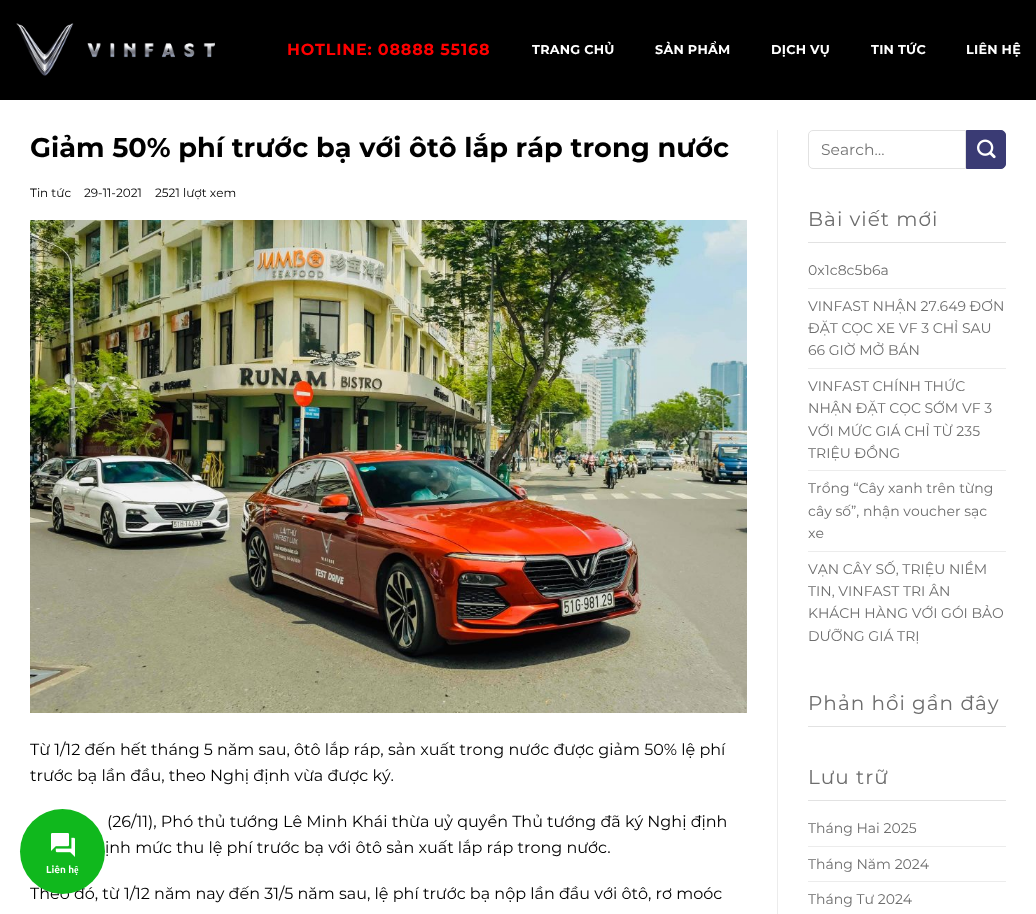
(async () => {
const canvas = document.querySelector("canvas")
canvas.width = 1036
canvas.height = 914
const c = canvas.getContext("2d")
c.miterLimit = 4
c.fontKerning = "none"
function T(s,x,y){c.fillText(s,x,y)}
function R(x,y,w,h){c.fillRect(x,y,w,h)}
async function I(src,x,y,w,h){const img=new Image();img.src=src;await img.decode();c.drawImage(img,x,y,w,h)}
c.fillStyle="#fff"
R(0,0,1036,914)
c.fillStyle="#000"
R(0,0,1036,100)
await I("1.png",16,23,199,53)
c.letterSpacing="0.8px"
c.font="bold 16px Montserrat"
c.fillStyle="#f00"
T("HOTLINE: 08888 55168",287,55)
c.letterSpacing="0.25px"
c.font="bold 12.75px Montserrat"
c.fillStyle="#fff"
T("TRANG CHỦ",532,54)
T("SẢN PHẨM",655,54)
T("DỊCH VỤ",771,54)
T("TIN TỨC",871,54)
T("LIÊN HỆ",966,54)
c.letterSpacing="0px"
c.font="bold 27.2px Montserrat"
c.fillStyle="#000"
T("Giảm 50% phí trước bạ với ôtô lắp ráp trong nước",30,157)
c.font="12px Montserrat"
T("Tin tức",30,197)
T("29-11-2021",84,197)
T("2521 lượt xem",155,197)
await I("2.png",30,220,717,493)
c.font="16px Montserrat"
T("Từ 1/12 đến hết tháng 5 năm sau, ôtô lắp ráp, sản xuất trong nước được giảm 50% lệ phí",30,755)
T("trước bạ lần đầu, theo Nghị định vừa được ký.",30,781)
T("(26/11), Phó thủ tướng Lê Minh Khái thừa uỷ quyền Thủ tướng đã ký Nghị định",107,827)
T("ịnh mức thu lệ phí trước bạ với ôtô sản xuất lắp ráp trong nước.",105,853)
T("Theo đó, từ 1/12 năm nay đến 31/5 năm sau, lệ phí trước bạ nộp lần đầu với ôtô, rơ moóc",30,899)
c.fillStyle="#ececec"
R(777,130,1,784)
c.beginPath()
c.roundRect(808.5,130.5,157,38,[4.5,0,0,4.5])
c.strokeStyle="#e2e2e2"
c.stroke()
c.font="15.5px Montserrat"
c.fillStyle="#757575"
T("Search…",821,155)
c.fillStyle="#3a3b74"
c.beginPath()
c.roundRect(966.5,130.5,39,38,[0,4.5,4.5,0])
c.fill()
c.strokeStyle="#3a3b74"
c.stroke()
await I("3.png",977,139,19,20)
c.fillStyle="#e2e2e2"
R(808,242,198,1)
c.letterSpacing="1px"
c.font="20px Montserrat"
c.fillStyle="#6d6d6d"
T("Bài viết mới",808,226)
c.letterSpacing="0px"
c.font="14px Montserrat"
T("0x1c8c5b6a",808,275)
c.fillStyle="#ececec"
R(808,288,198,1)
c.fillStyle="#6d6d6d"
T("VINFAST NHẬN 27.649 ĐƠN",808,311)
T("ĐẶT CỌC XE VF 3 CHỈ SAU",808,333)
T("66 GIỜ MỞ BÁN",808,355)
c.fillStyle="#ececec"
R(808,368,198,1)
c.fillStyle="#6d6d6d"
T("VINFAST CHÍNH THỨC",808,391)
T("NHẬN ĐẶT CỌC SỚM VF 3",808,413)
T("VỚI MỨC GIÁ CHỈ TỪ 235",808,436)
T("TRIỆU ĐỒNG",808,458)
c.fillStyle="#ececec"
R(808,470,198,1)
c.fillStyle="#6d6d6d"
T("Trồng “Cây xanh trên từng",808,493)
T("cây số”, nhận voucher sạc",808,516)
T("xe",808,538)
c.fillStyle="#ececec"
R(808,551,198,1)
c.fillStyle="#6d6d6d"
T("VẠN CÂY SỐ, TRIỆU NIỀM",808,574)
T("TIN, VINFAST TRI ÂN",808,596)
T("KHÁCH HÀNG VỚI GÓI BẢO",808,618)
T("DƯỠNG GIÁ TRỊ",808,641)
c.fillStyle="#e2e2e2"
R(808,726,198,1)
c.letterSpacing="1px"
c.font="20px Montserrat"
c.fillStyle="#6d6d6d"
T("Phản hồi gần đây",808,710)
c.fillStyle="#e2e2e2"
R(808,800,198,1)
c.fillStyle="#6d6d6d"
T("Lưu trữ",808,784)
c.letterSpacing="0px"
c.font="14px Montserrat"
T("Tháng Hai 2025",808,833)
c.fillStyle="#ececec"
R(808,846,198,1)
c.fillStyle="#6d6d6d"
T("Tháng Năm 2024",808,869)
c.fillStyle="#ececec"
R(808,881,198,1)
c.fillStyle="#6d6d6d"
T("Tháng Tư 2024",808,904)
c.fillStyle="#10b81d"
c.beginPath()
c.arc(62.5,851.5,42.5,0,7)
c.fill()
await I("4.png",51,833,24,24)
c.font="bold 10px Ubuntu"
c.fillStyle="#fff"
T("Liên hệ",46,873)
})()
